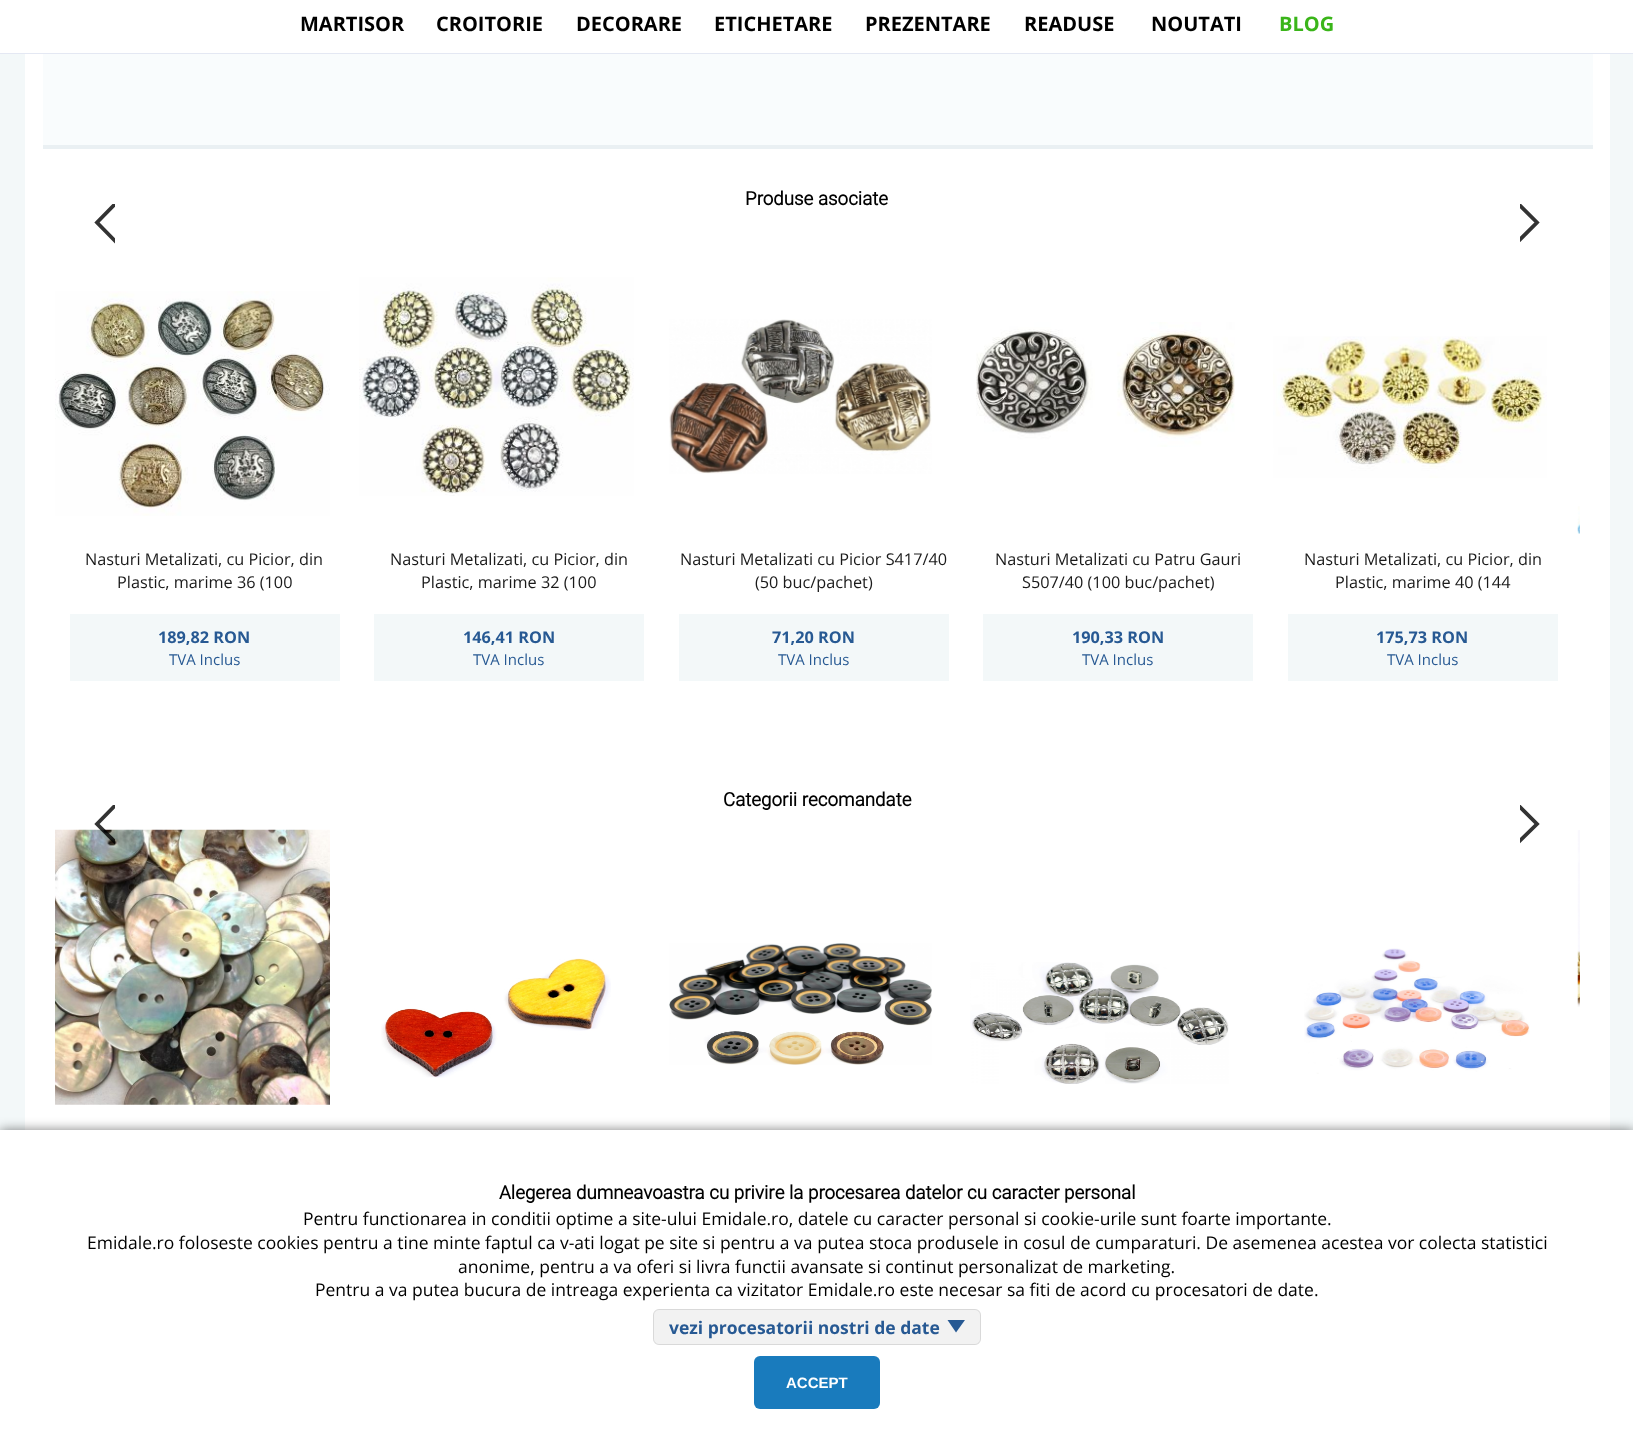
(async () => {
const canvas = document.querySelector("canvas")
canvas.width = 1633
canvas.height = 1448
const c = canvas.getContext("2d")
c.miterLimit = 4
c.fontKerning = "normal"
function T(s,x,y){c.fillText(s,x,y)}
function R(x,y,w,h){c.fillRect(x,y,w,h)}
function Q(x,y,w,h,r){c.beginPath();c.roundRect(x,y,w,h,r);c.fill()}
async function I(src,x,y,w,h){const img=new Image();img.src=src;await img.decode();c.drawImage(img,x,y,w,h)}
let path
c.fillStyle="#f3f8f9"
R(0,0,1633,1448)
c.fillStyle="#fff"
R(0,0,1633,53)
c.fillStyle="#e4e8f3"
R(0,53,1633,1)
c.font="bold 20px Open Sans"
c.fillStyle="#000"
T("MARTISOR",300,31)
T("CROITORIE",436,31)
T("DECORARE",576,31)
T("ETICHETARE",714,31)
T("PREZENTARE",865,31)
T("READUSE",1024,31)
T("NOUTATI",1151,31)
c.fillStyle="#3ab519"
T("BLOG",1279,31)
c.fillStyle="#fff"
R(25,54,1585,1076)
c.fillStyle="#f9fcfd"
R(43,54,1550,91)
c.fillStyle="#eaf0f3"
R(43,145,1550,4)
c.font="bold 18.75px Heebo"
c.fillStyle="#000"
T("Produse asociate",745,205)
c.save()
c.beginPath()
c.rect(93,204,22,40)
c.clip()
path = new Path2D("M120.5 198.5l24 24l-24 24l-23.5-24z")
c.strokeStyle="#333"
c.lineWidth=3.8
c.stroke(path)
c.restore()
c.save()
c.beginPath()
c.rect(1520,204,23,40)
c.clip()
path = new Path2D("M1513 198.5l24 24l-24 24l-23.5-24z")
c.strokeStyle="#333"
c.lineWidth=3.8
c.stroke(path)
c.restore()
await I("1.png",1577,506,3,28)
await I("2.png",55,291,275,225)
c.font="16.25px Open Sans"
c.fillStyle="#1a1a1a"
T("Nasturi Metalizati, cu Picior, din",85,565)
T("Plastic, marime 36 (100",117,588)
c.fillStyle="#f3f8f9"
R(70,614,270,67)
c.font="bold 16.25px Open Sans"
c.fillStyle="#275993"
T("189,82 RON",158,643)
c.font="15px Open Sans"
T("TVA Inclus",169,665)
await I("3.png",359,277,275,219)
c.font="16.25px Open Sans"
c.fillStyle="#1a1a1a"
T("Nasturi Metalizati, cu Picior, din",390,565)
T("Plastic, marime 32 (100",421,588)
c.fillStyle="#f3f8f9"
R(374,614,270,67)
c.font="bold 16.25px Open Sans"
c.fillStyle="#275993"
T("146,41 RON",463,643)
c.font="15px Open Sans"
T("TVA Inclus",473,665)
await I("4.png",669,319,263,155)
c.font="16.25px Open Sans"
c.fillStyle="#1a1a1a"
T("Nasturi Metalizati cu Picior S417/40",680,565)
T("(50 buc/pachet)",755,588)
c.fillStyle="#f3f8f9"
R(679,614,270,67)
c.font="bold 16.25px Open Sans"
c.fillStyle="#275993"
T("71,20 RON",772,643)
c.font="15px Open Sans"
T("TVA Inclus",778,665)
await I("5.png",976,322,259,125)
c.font="16.25px Open Sans"
c.fillStyle="#1a1a1a"
T("Nasturi Metalizati cu Patru Gauri",995,565)
T("S507/40 (100 buc/pachet)",1022,588)
c.fillStyle="#f3f8f9"
R(983,614,270,67)
c.font="bold 16.25px Open Sans"
c.fillStyle="#275993"
T("190,33 RON",1072,643)
c.font="15px Open Sans"
T("TVA Inclus",1082,665)
await I("6.png",1273,336,274,142)
c.font="16.25px Open Sans"
c.fillStyle="#1a1a1a"
T("Nasturi Metalizati, cu Picior, din",1304,565)
T("Plastic, marime 40 (144",1335,588)
c.fillStyle="#f3f8f9"
R(1288,614,270,67)
c.font="bold 16.25px Open Sans"
c.fillStyle="#275993"
T("175,73 RON",1376,643)
c.font="15px Open Sans"
T("TVA Inclus",1387,665)
c.font="bold 18.75px Heebo"
c.fillStyle="#000"
T("Categorii recomandate",723,806)
await I("7.png",55,829,275,276)
c.save()
c.beginPath()
c.rect(93,805,22,40)
c.clip()
path = new Path2D("M120.5 800l24 24l-24 23.5l-23.5-23.5z")
c.strokeStyle="#000000cc"
c.lineWidth=3.8
c.stroke(path)
c.restore()
c.save()
c.beginPath()
c.rect(1520,805,23,40)
c.clip()
path = new Path2D("M1513 800l24 24l-24 23.5l-23.5-23.5z")
c.strokeStyle="#333"
c.lineWidth=3.8
c.stroke(path)
c.restore()
await I("8.png",381,958,230,120)
await I("9.png",669,943,263,122)
await I("10.png",970,962,259,122)
await I("11.png",1304,948,226,126)
await I("12.png",1577,830,3,177)
c.fillStyle="#00000080"
c.filter="blur(6px)"
c.beginPath()
c.rect(0,1130,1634,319)
c.fill()
c.filter="none"
c.fillStyle="#fff"
R(0,1130,1633,318)
c.fillStyle="#000"
T("Alegerea dumneavoastra cu privire la procesarea datelor cu caracter personal",499,1199)
c.font="17.5px Open Sans"
T("Pentru functionarea in conditii optime a site-ului Emidale.ro, datele cu caracter personal si cookie-urile sunt foarte importante.",303,1225)
T("Emidale.ro foloseste cookies pentru a tine minte faptul ca v-ati logat pe site si pentru a va putea stoca produsele in cosul de cumparaturi. De asemenea acestea vor colecta statistici",87,1249)
T("anonime, pentru a va oferi si livra functii avansate si continut personalizat de marketing.",458,1273)
T("Pentru a va putea bucura de intreaga experienta ca vizitator Emidale.ro este necesar sa fiti de acord cu procesatori de date.",315,1296)
c.fillStyle="#f2f2f2"
Q(653,1309,328,36,6)
c.beginPath()
c.roundRect(653.5,1309.5,327,35,5.5)
c.strokeStyle="#0000001a"
c.stroke()
c.font="bold 17.5px Open Sans"
c.fillStyle="#275993"
T("vezi procesatorii nostri de date",669,1334)
path = new Path2D("M947.5 1320h17.5l-9 12.5z")
c.fill(path)
c.fillStyle="#197bbd"
Q(754,1356,126,53,6)
c.font="bold 15px Liberation Sans"
c.fillStyle="#fff"
T("ACCEPT",786,1388)
})()
